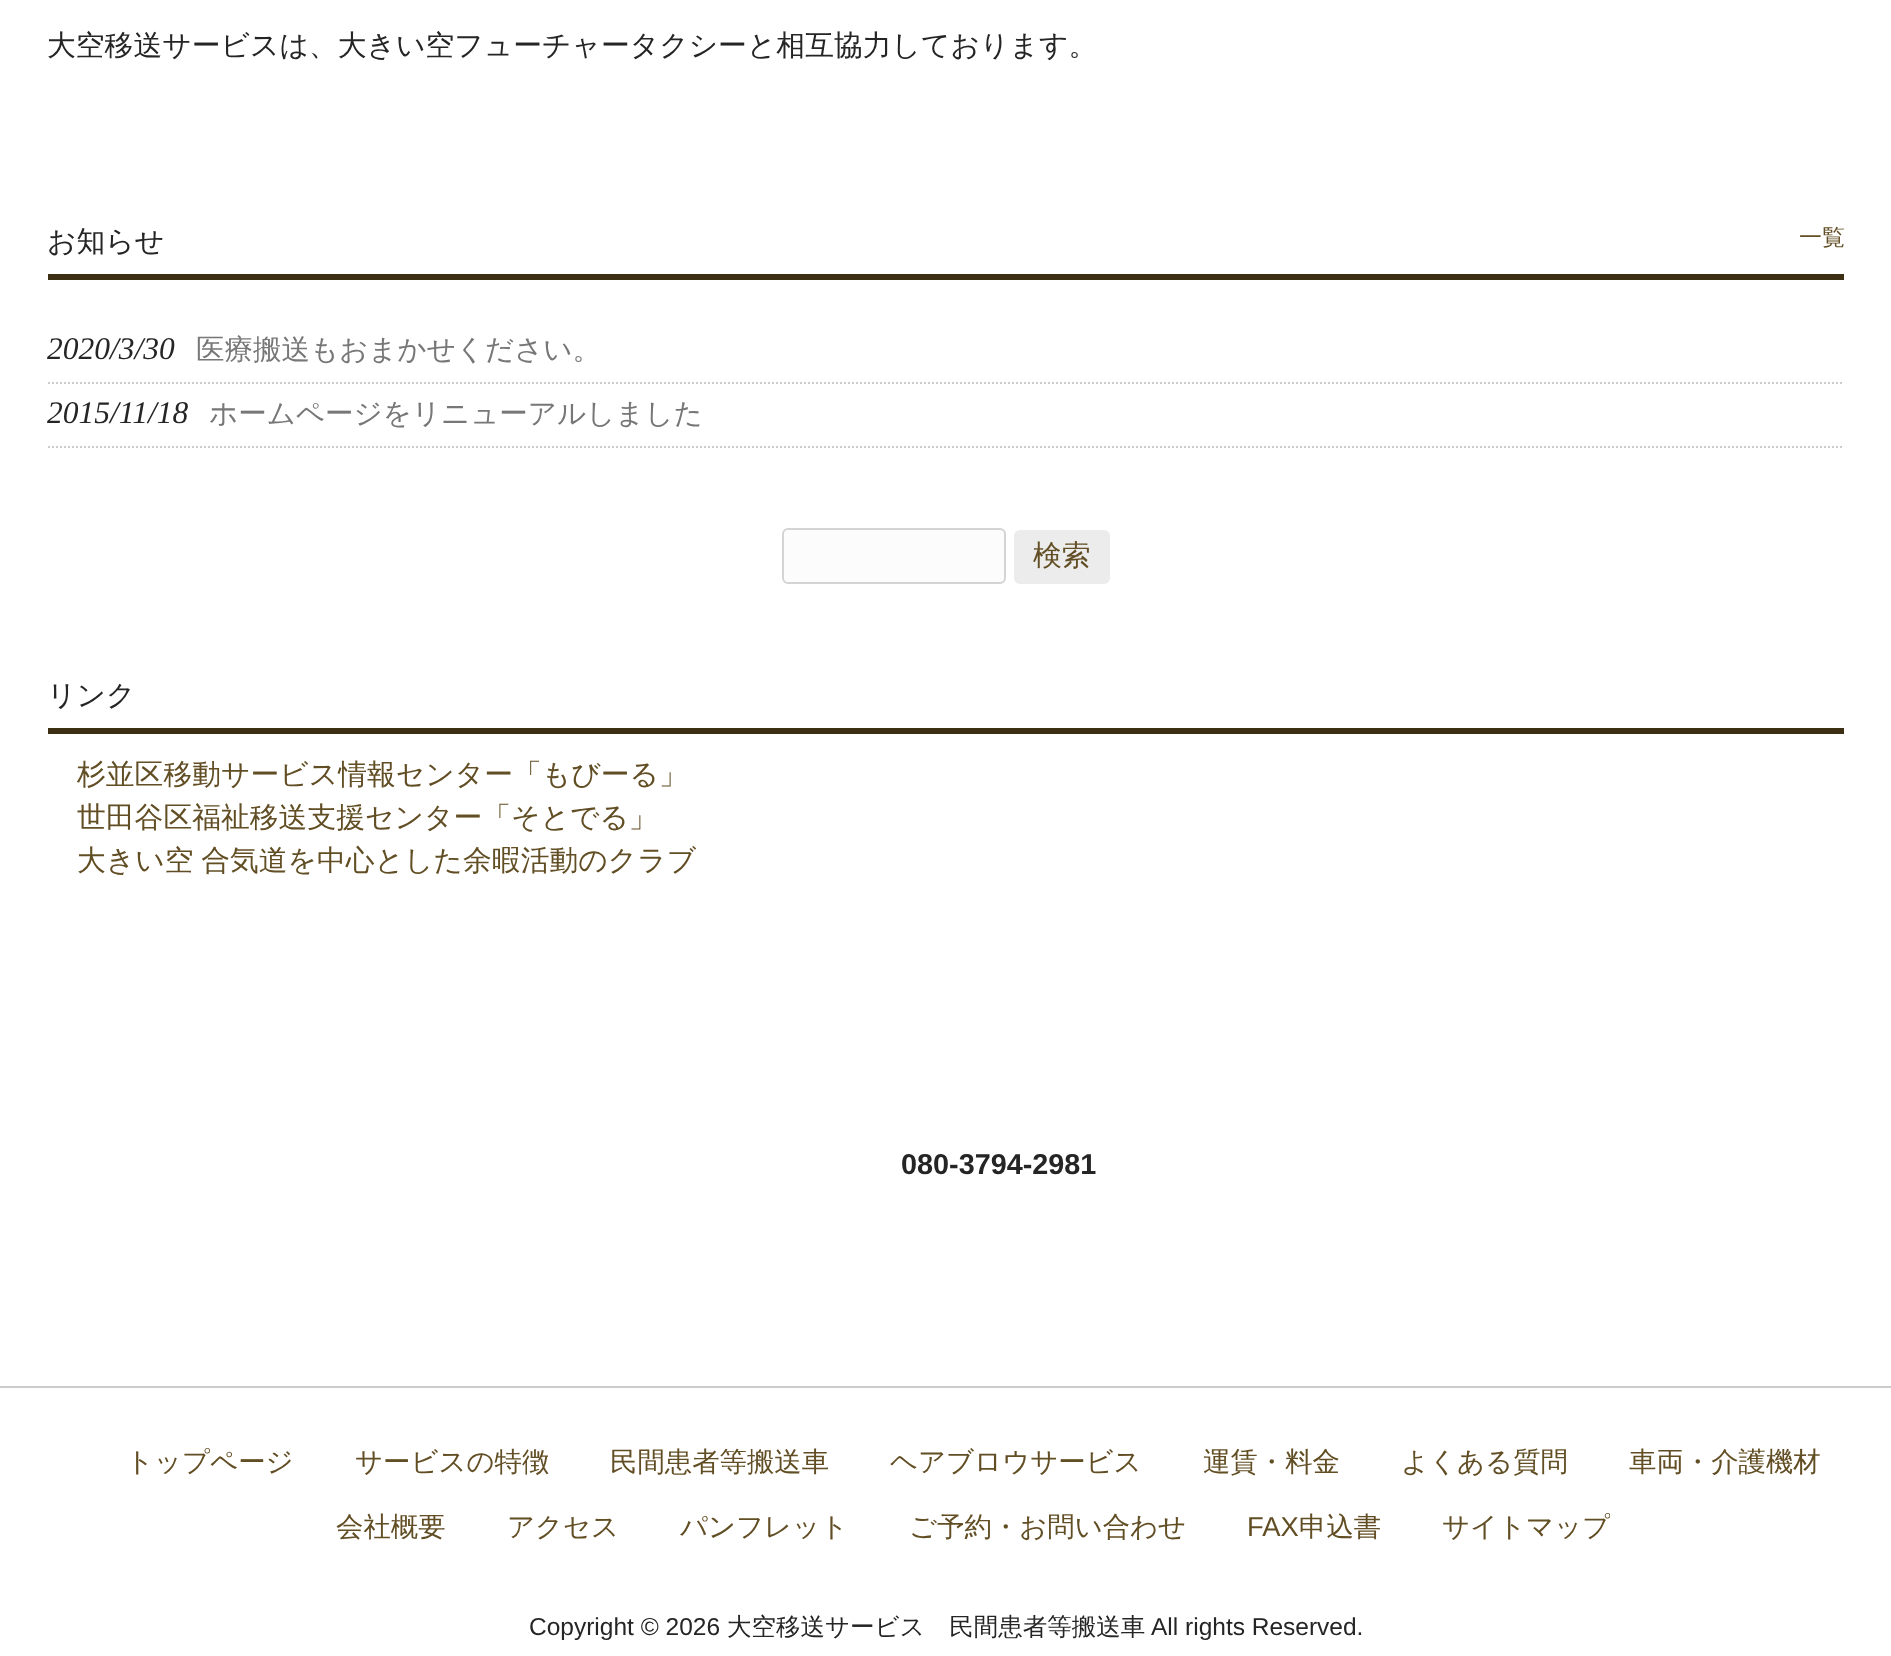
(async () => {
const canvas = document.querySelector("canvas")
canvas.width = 1891
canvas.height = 1656
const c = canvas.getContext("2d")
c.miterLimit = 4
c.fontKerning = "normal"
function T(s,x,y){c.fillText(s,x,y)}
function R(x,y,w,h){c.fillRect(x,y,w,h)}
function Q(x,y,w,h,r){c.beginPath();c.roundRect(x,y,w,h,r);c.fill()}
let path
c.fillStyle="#fff"
R(0,0,1891,1656)
c.font="500 28.8px WenQuanYi Zen Hei"
c.fillStyle="#252525"
T("大空移送サービスは、大きい空フューチャータクシーと相互協力しております。",47,55)
c.fillStyle="#3c2f13"
R(48,274,1796,6)
c.fillStyle="#252525"
T("お知らせ",47,251)
c.font="500 23px WenQuanYi Zen Hei"
c.fillStyle="#624e24"
T("一覧",1799,245)
path = new Path2D("M48 383h1796")
c.strokeStyle="#ccc"
c.lineWidth=2
c.setLineDash([2,2])
c.stroke(path)
c.font="italic 31.5px Liberation Serif"
c.fillStyle="#252525"
T("2020/3/30",47,359)
c.font="500 28.5px WenQuanYi Zen Hei"
c.fillStyle="#777"
T("医療搬送もおまかせください。",196,359)
path = new Path2D("M48 447h1796")
c.stroke(path)
c.font="italic 31.5px Liberation Serif"
c.fillStyle="#252525"
T("2015/11/18",47,423)
c.font="500 28.5px WenQuanYi Zen Hei"
c.fillStyle="#777"
T("ホームページをリニューアルしました",209,423)
c.fillStyle="#fcfcfc"
c.beginPath()
c.roundRect(783,529,222,54,5)
c.fill()
c.strokeStyle="#d4d4d7"
c.setLineDash([])
c.stroke()
c.fillStyle="#ececec"
Q(1014,530,96,54,6)
c.font="500 28.8px WenQuanYi Zen Hei"
c.fillStyle="#624e24"
T("検索",1033,565)
c.fillStyle="#3c2f13"
R(48,728,1796,6)
c.fillStyle="#252525"
T("リンク",47,705)
c.fillStyle="#624e24"
T("杉並区移動サービス情報センター「もびーる」",77,784)
T("世田谷区福祉移送支援センター「そとでる」",77,827)
c.wordSpacing="-1px"
T("大きい空 合気道を中心とした余暇活動のクラブ",77,870)
c.wordSpacing="0px"
c.font="bold 28.8px Liberation Sans"
c.fillStyle="#252525"
T("080-3794-2981",901,1174)
c.fillStyle="#ccc"
R(0,1386,1891,2)
c.font="500 27.4px WenQuanYi Zen Hei"
c.fillStyle="#624e24"
T("トップページ",126,1471)
T("サービスの特徴",355,1471)
T("民間患者等搬送車",610,1471)
T("ヘアブロウサービス",890,1471)
T("運賃・料金",1203,1471)
T("よくある質問",1401,1471)
T("車両・介護機材",1629,1471)
T("会社概要",336,1536)
T("アクセス",507,1536)
T("パンフレット",680,1536)
T("ご予約・お問い合わせ",909,1536)
c.font="27.4px Liberation Sans"
T("FAX",1247,1536)
c.font="500 27.4px WenQuanYi Zen Hei"
T("申込書",1299,1536)
c.save()
c.beginPath()
c.rect(1418,1508,192,40)
c.clip()
T("サイトマップ",1442,1536)
c.restore()
c.font="24.5px Liberation Sans"
c.fillStyle="#252525"
T("Copyright © 2026",529,1635)
c.font="500 24.5px WenQuanYi Zen Hei"
T("大空移送サービス　民間患者等搬送車",727,1635)
c.font="24.5px Liberation Sans"
T("All rights Reserved.",1151,1635)
})()
